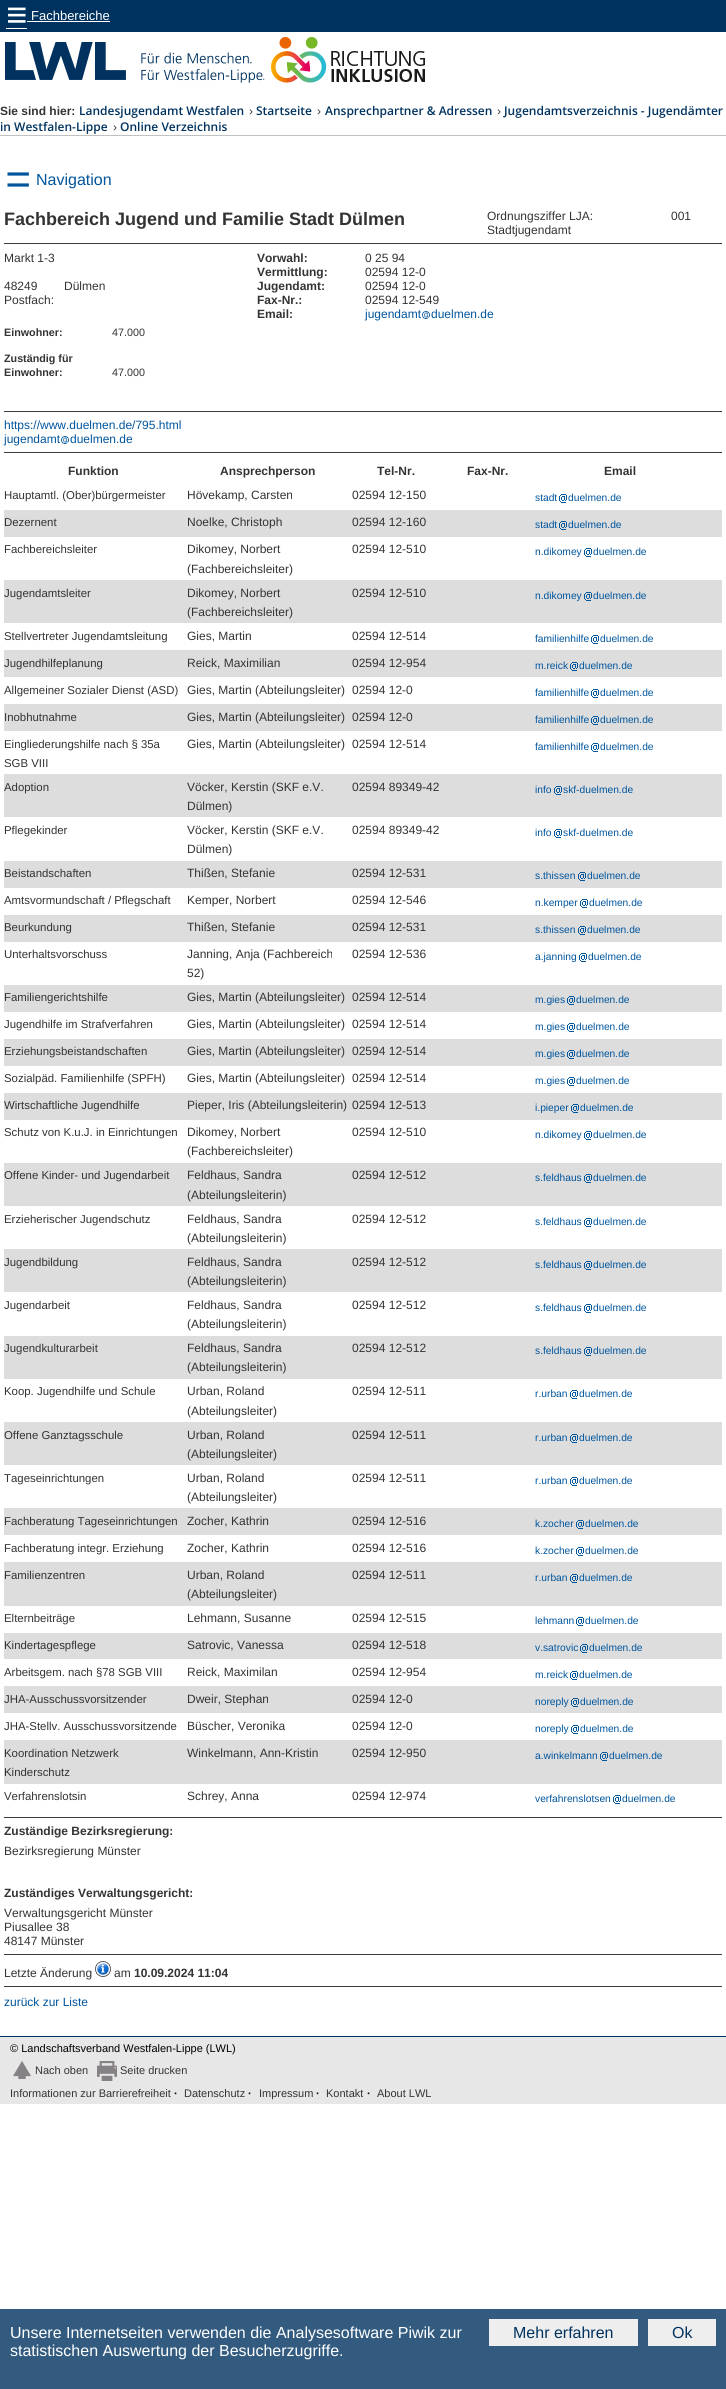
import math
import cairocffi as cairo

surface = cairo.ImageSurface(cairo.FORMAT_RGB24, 726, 2389)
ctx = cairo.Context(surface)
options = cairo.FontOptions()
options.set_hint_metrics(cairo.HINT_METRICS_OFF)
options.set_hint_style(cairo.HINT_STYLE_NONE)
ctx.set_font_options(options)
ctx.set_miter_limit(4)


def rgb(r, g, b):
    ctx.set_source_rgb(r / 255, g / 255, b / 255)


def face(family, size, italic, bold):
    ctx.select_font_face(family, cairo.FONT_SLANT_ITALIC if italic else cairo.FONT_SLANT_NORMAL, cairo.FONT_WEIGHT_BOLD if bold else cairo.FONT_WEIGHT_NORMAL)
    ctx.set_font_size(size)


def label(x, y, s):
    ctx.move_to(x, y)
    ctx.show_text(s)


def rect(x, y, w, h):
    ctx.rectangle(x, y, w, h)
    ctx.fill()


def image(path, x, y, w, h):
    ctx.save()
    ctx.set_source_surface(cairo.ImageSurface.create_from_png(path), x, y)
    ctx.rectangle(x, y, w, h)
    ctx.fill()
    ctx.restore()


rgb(255, 255, 255)
ctx.paint()
rgb(0, 50, 95)
rect(0, 0, 726, 32)
face('Liberation Mono', 36, 0, 0)
rgb(255, 255, 255)
label(6, 27, '≡')
rect(6, 28, 21, 1)
face('Liberation Sans', 13, 0, 0)
label(31, 20, 'Fachbereiche')
rect(27, 21, 83, 1)
image('image0.png', 5, 42, 260, 41)
image('image1.png', 271, 37, 154, 46)
rgb(193, 193, 194)
rect(0, 135, 726, 1)
face('Liberation Sans', 12, 0, 1)
rgb(51, 51, 51)
label(0, 115, 'Sie sind hier:')
face('Open Sans SemiBold', 12, 0, 0)
rgb(0, 50, 95)
label(79, 115, 'Landesjugendamt Westfalen')
face('Liberation Sans', 12, 0, 0)
rgb(51, 51, 51)
label(249, 115, '›')
face('Open Sans SemiBold', 12, 0, 0)
rgb(0, 50, 95)
label(256, 115, 'Startseite')
face('Liberation Sans', 12, 0, 0)
rgb(51, 51, 51)
label(317, 115, '›')
face('Open Sans SemiBold', 12, 0, 0)
rgb(0, 50, 95)
label(325, 115, 'Ansprechpartner & Adressen')
face('Liberation Sans', 12, 0, 0)
rgb(51, 51, 51)
label(497, 115, '›')
face('Open Sans SemiBold', 12, 0, 0)
rgb(0, 50, 95)
label(504, 115, 'Jugendamtsverzeichnis - Jugendämter')
label(0, 131, 'in Westfalen-Lippe')
face('Liberation Sans', 12, 0, 0)
rgb(51, 51, 51)
label(113, 131, '›')
face('Open Sans SemiBold', 12, 0, 0)
rgb(0, 50, 95)
label(120, 131, 'Online Verzeichnis')
face('Liberation Mono', 44, 0, 0)
rgb(0, 85, 157)
label(5, 194, '=')
face('Liberation Sans', 16, 0, 0)
label(36, 185, 'Navigation')
face('Liberation Sans', 18, 0, 1)
rgb(51, 51, 51)
label(4, 225, 'Fachbereich Jugend und Familie Stadt Dülmen')
face('Liberation Sans', 12, 0, 0)
label(487, 220, 'Ordnungsziffer LJA:')
label(671, 220, '001')
label(487, 234, 'Stadtjugendamt')
rgb(60, 60, 60)
rect(4, 243, 718, 1)
rgb(51, 51, 51)
label(4, 262, 'Markt 1-3')
label(4, 290, '48249')
label(64, 290, 'Dülmen')
label(4, 304, 'Postfach:')
face('Liberation Sans', 12, 0, 1)
label(257, 262, 'Vorwahl:')
face('Liberation Sans', 12, 0, 0)
label(365, 262, '0 25 94')
face('Liberation Sans', 12, 0, 1)
label(257, 276, 'Vermittlung:')
face('Liberation Sans', 12, 0, 0)
label(365, 276, '02594 12-0')
face('Liberation Sans', 12, 0, 1)
label(257, 290, 'Jugendamt:')
face('Liberation Sans', 12, 0, 0)
label(365, 290, '02594 12-0')
face('Liberation Sans', 12, 0, 1)
label(257, 304, 'Fax-Nr.:')
face('Liberation Sans', 12, 0, 0)
label(365, 304, '02594 12-549')
face('Liberation Sans', 12, 0, 1)
label(257, 318, 'Email:')
face('Liberation Sans', 12, 0, 0)
rgb(0, 85, 157)
label(365, 318, 'jugendamt')
image('image2.png', 422, 311, 8, 8)
label(431, 318, 'duelmen.de')
face('Liberation Sans', 10.75, 0, 1)
rgb(51, 51, 51)
label(4, 336, 'Einwohner:')
face('Liberation Sans', 10.75, 0, 0)
label(112, 336, '47.000')
face('Liberation Sans', 10.75, 0, 1)
label(4, 362, 'Zuständig für')
label(4, 376, 'Einwohner:')
face('Liberation Sans', 10.75, 0, 0)
label(112, 376, '47.000')
rgb(60, 60, 60)
rect(4, 411, 718, 1)
face('Liberation Sans', 12, 0, 0)
rgb(0, 85, 157)
label(4, 429, 'https://www.duelmen.de/795.html')
label(4, 443, 'jugendamt')
image('image2.png', 61, 436, 8, 8)
label(70, 443, 'duelmen.de')
rgb(60, 60, 60)
rect(4, 452, 718, 1)
face('Liberation Sans', 12, 0, 1)
rgb(51, 51, 51)
label(68, 475, 'Funktion')
label(220, 475, 'Ansprechperson')
label(377, 475, 'Tel-Nr.')
label(467, 475, 'Fax-Nr.')
label(604, 475, 'Email')
face('Liberation Sans', 11.4, 0, 0)
label(4, 499, 'Hauptamtl. (Ober)bürgermeister')
face('Liberation Sans', 12, 0, 0)
label(187, 499, 'Hövekamp, Carsten')
label(352, 499, '02594 12-150')
face('Liberation Sans', 10.25, 0, 0)
rgb(0, 85, 157)
label(535, 501, 'stadt')
image('image3.png', 559, 494, 8, 9)
label(568, 501, 'duelmen.de')
rgb(221, 221, 221)
rect(4, 510, 718, 27)
face('Liberation Sans', 11.4, 0, 0)
rgb(51, 51, 51)
label(4, 526, 'Dezernent')
face('Liberation Sans', 12, 0, 0)
label(187, 526, 'Noelke, Christoph')
label(352, 526, '02594 12-160')
face('Liberation Sans', 10.25, 0, 0)
rgb(0, 85, 157)
label(535, 528, 'stadt')
image('image4.png', 559, 521, 8, 9)
label(568, 528, 'duelmen.de')
face('Liberation Sans', 11.4, 0, 0)
rgb(51, 51, 51)
label(4, 553, 'Fachbereichsleiter')
face('Liberation Sans', 12, 0, 0)
label(187, 553, 'Dikomey, Norbert')
label(187, 573, '(Fachbereichsleiter)')
label(352, 553, '02594 12-510')
face('Liberation Sans', 10.25, 0, 0)
rgb(0, 85, 157)
label(535, 555, 'n.dikomey')
image('image3.png', 584, 548, 8, 9)
label(593, 555, 'duelmen.de')
rgb(221, 221, 221)
rect(4, 580, 718, 43)
face('Liberation Sans', 11.4, 0, 0)
rgb(51, 51, 51)
label(4, 597, 'Jugendamtsleiter')
face('Liberation Sans', 12, 0, 0)
label(187, 597, 'Dikomey, Norbert')
label(187, 616, '(Fachbereichsleiter)')
label(352, 597, '02594 12-510')
face('Liberation Sans', 10.25, 0, 0)
rgb(0, 85, 157)
label(535, 599, 'n.dikomey')
image('image4.png', 584, 592, 8, 9)
label(593, 599, 'duelmen.de')
face('Liberation Sans', 11.4, 0, 0)
rgb(51, 51, 51)
label(4, 640, 'Stellvertreter Jugendamtsleitung')
face('Liberation Sans', 12, 0, 0)
label(187, 640, 'Gies, Martin')
label(352, 640, '02594 12-514')
face('Liberation Sans', 10.25, 0, 0)
rgb(0, 85, 157)
label(535, 642, 'familienhilfe')
image('image3.png', 591, 635, 8, 9)
label(600, 642, 'duelmen.de')
rgb(221, 221, 221)
rect(4, 650, 718, 27)
face('Liberation Sans', 11.4, 0, 0)
rgb(51, 51, 51)
label(4, 667, 'Jugendhilfeplanung')
face('Liberation Sans', 12, 0, 0)
label(187, 667, 'Reick, Maximilian')
label(352, 667, '02594 12-954')
face('Liberation Sans', 10.25, 0, 0)
rgb(0, 85, 157)
label(535, 669, 'm.reick')
image('image4.png', 570, 662, 8, 9)
label(579, 669, 'duelmen.de')
face('Liberation Sans', 11.4, 0, 0)
rgb(51, 51, 51)
label(4, 694, 'Allgemeiner Sozialer Dienst (ASD)')
face('Liberation Sans', 12, 0, 0)
label(187, 694, 'Gies, Martin (Abteilungsleiter)')
label(352, 694, '02594 12-0')
face('Liberation Sans', 10.25, 0, 0)
rgb(0, 85, 157)
label(535, 696, 'familienhilfe')
image('image3.png', 591, 689, 8, 9)
label(600, 696, 'duelmen.de')
rgb(221, 221, 221)
rect(4, 704, 718, 27)
face('Liberation Sans', 11.4, 0, 0)
rgb(51, 51, 51)
label(4, 721, 'Inobhutnahme')
face('Liberation Sans', 12, 0, 0)
label(187, 721, 'Gies, Martin (Abteilungsleiter)')
label(352, 721, '02594 12-0')
face('Liberation Sans', 10.25, 0, 0)
rgb(0, 85, 157)
label(535, 723, 'familienhilfe')
image('image4.png', 591, 716, 8, 9)
label(600, 723, 'duelmen.de')
face('Liberation Sans', 11.4, 0, 0)
rgb(51, 51, 51)
label(4, 748, 'Eingliederungshilfe nach § 35a')
label(4, 767, 'SGB VIII')
face('Liberation Sans', 12, 0, 0)
label(187, 748, 'Gies, Martin (Abteilungsleiter)')
label(352, 748, '02594 12-514')
face('Liberation Sans', 10.25, 0, 0)
rgb(0, 85, 157)
label(535, 750, 'familienhilfe')
image('image3.png', 591, 743, 8, 9)
label(600, 750, 'duelmen.de')
rgb(221, 221, 221)
rect(4, 774, 718, 43)
face('Liberation Sans', 11.4, 0, 0)
rgb(51, 51, 51)
label(4, 791, 'Adoption')
face('Liberation Sans', 12, 0, 0)
label(187, 791, 'Vöcker, Kerstin (SKF e.V.')
label(187, 810, 'Dülmen)')
label(352, 791, '02594 89349-42')
face('Liberation Sans', 10.25, 0, 0)
rgb(0, 85, 157)
label(535, 793, 'info')
image('image4.png', 554, 786, 8, 9)
label(563, 793, 'skf-duelmen.de')
face('Liberation Sans', 11.4, 0, 0)
rgb(51, 51, 51)
label(4, 834, 'Pflegekinder')
face('Liberation Sans', 12, 0, 0)
label(187, 834, 'Vöcker, Kerstin (SKF e.V.')
label(187, 853, 'Dülmen)')
label(352, 834, '02594 89349-42')
face('Liberation Sans', 10.25, 0, 0)
rgb(0, 85, 157)
label(535, 836, 'info')
image('image3.png', 554, 829, 8, 9)
label(563, 836, 'skf-duelmen.de')
rgb(221, 221, 221)
rect(4, 861, 718, 27)
face('Liberation Sans', 11.4, 0, 0)
rgb(51, 51, 51)
label(4, 877, 'Beistandschaften')
face('Liberation Sans', 12, 0, 0)
label(187, 877, 'Thißen, Stefanie')
label(352, 877, '02594 12-531')
face('Liberation Sans', 10.25, 0, 0)
rgb(0, 85, 157)
label(535, 879, 's.thissen')
image('image4.png', 578, 872, 8, 9)
label(587, 879, 'duelmen.de')
face('Liberation Sans', 11.4, 0, 0)
rgb(51, 51, 51)
label(4, 904, 'Amtsvormundschaft / Pflegschaft')
face('Liberation Sans', 12, 0, 0)
label(187, 904, 'Kemper, Norbert')
label(352, 904, '02594 12-546')
face('Liberation Sans', 10.25, 0, 0)
rgb(0, 85, 157)
label(535, 906, 'n.kemper')
image('image3.png', 580, 899, 8, 9)
label(589, 906, 'duelmen.de')
rgb(221, 221, 221)
rect(4, 915, 718, 27)
face('Liberation Sans', 11.4, 0, 0)
rgb(51, 51, 51)
label(4, 931, 'Beurkundung')
face('Liberation Sans', 12, 0, 0)
label(187, 931, 'Thißen, Stefanie')
label(352, 931, '02594 12-531')
face('Liberation Sans', 10.25, 0, 0)
rgb(0, 85, 157)
label(535, 933, 's.thissen')
image('image4.png', 578, 926, 8, 9)
label(587, 933, 'duelmen.de')
face('Liberation Sans', 11.4, 0, 0)
rgb(51, 51, 51)
label(4, 958, 'Unterhaltsvorschuss')
face('Liberation Sans', 12, 0, 0)
label(187, 958, 'Janning, Anja (Fachbereich')
label(187, 977, '52)')
label(352, 958, '02594 12-536')
face('Liberation Sans', 10.25, 0, 0)
rgb(0, 85, 157)
label(535, 960, 'a.janning')
image('image3.png', 579, 953, 8, 9)
label(588, 960, 'duelmen.de')
rgb(221, 221, 221)
rect(4, 985, 718, 27)
face('Liberation Sans', 11.4, 0, 0)
rgb(51, 51, 51)
label(4, 1001, 'Familiengerichtshilfe')
face('Liberation Sans', 12, 0, 0)
label(187, 1001, 'Gies, Martin (Abteilungsleiter)')
label(352, 1001, '02594 12-514')
face('Liberation Sans', 10.25, 0, 0)
rgb(0, 85, 157)
label(535, 1003, 'm.gies')
image('image4.png', 567, 996, 8, 9)
label(576, 1003, 'duelmen.de')
face('Liberation Sans', 11.4, 0, 0)
rgb(51, 51, 51)
label(4, 1028, 'Jugendhilfe im Strafverfahren')
face('Liberation Sans', 12, 0, 0)
label(187, 1028, 'Gies, Martin (Abteilungsleiter)')
label(352, 1028, '02594 12-514')
face('Liberation Sans', 10.25, 0, 0)
rgb(0, 85, 157)
label(535, 1030, 'm.gies')
image('image3.png', 567, 1023, 8, 9)
label(576, 1030, 'duelmen.de')
rgb(221, 221, 221)
rect(4, 1039, 718, 27)
face('Liberation Sans', 11.4, 0, 0)
rgb(51, 51, 51)
label(4, 1055, 'Erziehungsbeistandschaften')
face('Liberation Sans', 12, 0, 0)
label(187, 1055, 'Gies, Martin (Abteilungsleiter)')
label(352, 1055, '02594 12-514')
face('Liberation Sans', 10.25, 0, 0)
rgb(0, 85, 157)
label(535, 1057, 'm.gies')
image('image4.png', 567, 1050, 8, 9)
label(576, 1057, 'duelmen.de')
face('Liberation Sans', 11.4, 0, 0)
rgb(51, 51, 51)
label(4, 1082, 'Sozialpäd. Familienhilfe (SPFH)')
face('Liberation Sans', 12, 0, 0)
label(187, 1082, 'Gies, Martin (Abteilungsleiter)')
label(352, 1082, '02594 12-514')
face('Liberation Sans', 10.25, 0, 0)
rgb(0, 85, 157)
label(535, 1084, 'm.gies')
image('image3.png', 567, 1077, 8, 9)
label(576, 1084, 'duelmen.de')
rgb(221, 221, 221)
rect(4, 1093, 718, 27)
face('Liberation Sans', 11.4, 0, 0)
rgb(51, 51, 51)
label(4, 1109, 'Wirtschaftliche Jugendhilfe')
face('Liberation Sans', 12, 0, 0)
label(187, 1109, 'Pieper, Iris (Abteilungsleiterin)')
label(352, 1109, '02594 12-513')
face('Liberation Sans', 10.25, 0, 0)
rgb(0, 85, 157)
label(535, 1111, 'i.pieper')
image('image4.png', 571, 1104, 8, 9)
label(580, 1111, 'duelmen.de')
face('Liberation Sans', 11.4, 0, 0)
rgb(51, 51, 51)
label(4, 1136, 'Schutz von K.u.J. in Einrichtungen')
face('Liberation Sans', 12, 0, 0)
label(187, 1136, 'Dikomey, Norbert')
label(187, 1155, '(Fachbereichsleiter)')
label(352, 1136, '02594 12-510')
face('Liberation Sans', 10.25, 0, 0)
rgb(0, 85, 157)
label(535, 1138, 'n.dikomey')
image('image3.png', 584, 1131, 8, 9)
label(593, 1138, 'duelmen.de')
rgb(221, 221, 221)
rect(4, 1163, 718, 43)
face('Liberation Sans', 11.4, 0, 0)
rgb(51, 51, 51)
label(4, 1179, 'Offene Kinder- und Jugendarbeit')
face('Liberation Sans', 12, 0, 0)
label(187, 1179, 'Feldhaus, Sandra')
label(187, 1199, '(Abteilungsleiterin)')
label(352, 1179, '02594 12-512')
face('Liberation Sans', 10.25, 0, 0)
rgb(0, 85, 157)
label(535, 1181, 's.feldhaus')
image('image4.png', 584, 1174, 8, 9)
label(593, 1181, 'duelmen.de')
face('Liberation Sans', 11.4, 0, 0)
rgb(51, 51, 51)
label(4, 1223, 'Erzieherischer Jugendschutz')
face('Liberation Sans', 12, 0, 0)
label(187, 1223, 'Feldhaus, Sandra')
label(187, 1242, '(Abteilungsleiterin)')
label(352, 1223, '02594 12-512')
face('Liberation Sans', 10.25, 0, 0)
rgb(0, 85, 157)
label(535, 1225, 's.feldhaus')
image('image3.png', 584, 1218, 8, 9)
label(593, 1225, 'duelmen.de')
rgb(221, 221, 221)
rect(4, 1249, 718, 43)
face('Liberation Sans', 11.4, 0, 0)
rgb(51, 51, 51)
label(4, 1266, 'Jugendbildung')
face('Liberation Sans', 12, 0, 0)
label(187, 1266, 'Feldhaus, Sandra')
label(187, 1285, '(Abteilungsleiterin)')
label(352, 1266, '02594 12-512')
face('Liberation Sans', 10.25, 0, 0)
rgb(0, 85, 157)
label(535, 1268, 's.feldhaus')
image('image4.png', 584, 1261, 8, 9)
label(593, 1268, 'duelmen.de')
face('Liberation Sans', 11.4, 0, 0)
rgb(51, 51, 51)
label(4, 1309, 'Jugendarbeit')
face('Liberation Sans', 12, 0, 0)
label(187, 1309, 'Feldhaus, Sandra')
label(187, 1328, '(Abteilungsleiterin)')
label(352, 1309, '02594 12-512')
face('Liberation Sans', 10.25, 0, 0)
rgb(0, 85, 157)
label(535, 1311, 's.feldhaus')
image('image3.png', 584, 1304, 8, 9)
label(593, 1311, 'duelmen.de')
rgb(221, 221, 221)
rect(4, 1336, 718, 43)
face('Liberation Sans', 11.4, 0, 0)
rgb(51, 51, 51)
label(4, 1352, 'Jugendkulturarbeit')
face('Liberation Sans', 12, 0, 0)
label(187, 1352, 'Feldhaus, Sandra')
label(187, 1371, '(Abteilungsleiterin)')
label(352, 1352, '02594 12-512')
face('Liberation Sans', 10.25, 0, 0)
rgb(0, 85, 157)
label(535, 1354, 's.feldhaus')
image('image4.png', 584, 1347, 8, 9)
label(593, 1354, 'duelmen.de')
face('Liberation Sans', 11.4, 0, 0)
rgb(51, 51, 51)
label(4, 1395, 'Koop. Jugendhilfe und Schule')
face('Liberation Sans', 12, 0, 0)
label(187, 1395, 'Urban, Roland')
label(187, 1415, '(Abteilungsleiter)')
label(352, 1395, '02594 12-511')
face('Liberation Sans', 10.25, 0, 0)
rgb(0, 85, 157)
label(535, 1397, 'r.urban')
image('image3.png', 570, 1390, 8, 9)
label(579, 1397, 'duelmen.de')
rgb(221, 221, 221)
rect(4, 1422, 718, 43)
face('Liberation Sans', 11.4, 0, 0)
rgb(51, 51, 51)
label(4, 1439, 'Offene Ganztagsschule')
face('Liberation Sans', 12, 0, 0)
label(187, 1439, 'Urban, Roland')
label(187, 1458, '(Abteilungsleiter)')
label(352, 1439, '02594 12-511')
face('Liberation Sans', 10.25, 0, 0)
rgb(0, 85, 157)
label(535, 1441, 'r.urban')
image('image4.png', 570, 1434, 8, 9)
label(579, 1441, 'duelmen.de')
face('Liberation Sans', 11.4, 0, 0)
rgb(51, 51, 51)
label(4, 1482, 'Tageseinrichtungen')
face('Liberation Sans', 12, 0, 0)
label(187, 1482, 'Urban, Roland')
label(187, 1501, '(Abteilungsleiter)')
label(352, 1482, '02594 12-511')
face('Liberation Sans', 10.25, 0, 0)
rgb(0, 85, 157)
label(535, 1484, 'r.urban')
image('image3.png', 570, 1477, 8, 9)
label(579, 1484, 'duelmen.de')
rgb(221, 221, 221)
rect(4, 1508, 718, 27)
face('Liberation Sans', 11.4, 0, 0)
rgb(51, 51, 51)
label(4, 1525, 'Fachberatung Tageseinrichtungen')
face('Liberation Sans', 12, 0, 0)
label(187, 1525, 'Zocher, Kathrin')
label(352, 1525, '02594 12-516')
face('Liberation Sans', 10.25, 0, 0)
rgb(0, 85, 157)
label(535, 1527, 'k.zocher')
image('image4.png', 576, 1520, 8, 9)
label(585, 1527, 'duelmen.de')
face('Liberation Sans', 11.4, 0, 0)
rgb(51, 51, 51)
label(4, 1552, 'Fachberatung integr. Erziehung')
face('Liberation Sans', 12, 0, 0)
label(187, 1552, 'Zocher, Kathrin')
label(352, 1552, '02594 12-516')
face('Liberation Sans', 10.25, 0, 0)
rgb(0, 85, 157)
label(535, 1554, 'k.zocher')
image('image3.png', 576, 1547, 8, 9)
label(585, 1554, 'duelmen.de')
rgb(221, 221, 221)
rect(4, 1562, 718, 44)
face('Liberation Sans', 11.4, 0, 0)
rgb(51, 51, 51)
label(4, 1579, 'Familienzentren')
face('Liberation Sans', 12, 0, 0)
label(187, 1579, 'Urban, Roland')
label(187, 1598, '(Abteilungsleiter)')
label(352, 1579, '02594 12-511')
face('Liberation Sans', 10.25, 0, 0)
rgb(0, 85, 157)
label(535, 1581, 'r.urban')
image('image4.png', 570, 1574, 8, 9)
label(579, 1581, 'duelmen.de')
face('Liberation Sans', 11.4, 0, 0)
rgb(51, 51, 51)
label(4, 1622, 'Elternbeiträge')
face('Liberation Sans', 12, 0, 0)
label(187, 1622, 'Lehmann, Susanne')
label(352, 1622, '02594 12-515')
face('Liberation Sans', 10.25, 0, 0)
rgb(0, 85, 157)
label(535, 1624, 'lehmann')
image('image3.png', 576, 1617, 8, 9)
label(585, 1624, 'duelmen.de')
rgb(221, 221, 221)
rect(4, 1633, 718, 26)
face('Liberation Sans', 11.4, 0, 0)
rgb(51, 51, 51)
label(4, 1649, 'Kindertagespflege')
face('Liberation Sans', 12, 0, 0)
label(187, 1649, 'Satrovic, Vanessa')
label(352, 1649, '02594 12-518')
face('Liberation Sans', 10.25, 0, 0)
rgb(0, 85, 157)
label(535, 1651, 'v.satrovic')
image('image4.png', 580, 1644, 8, 9)
label(589, 1651, 'duelmen.de')
face('Liberation Sans', 11.4, 0, 0)
rgb(51, 51, 51)
label(4, 1676, 'Arbeitsgem. nach §78 SGB VIII')
face('Liberation Sans', 12, 0, 0)
label(187, 1676, 'Reick, Maximilan')
label(352, 1676, '02594 12-954')
face('Liberation Sans', 10.25, 0, 0)
rgb(0, 85, 157)
label(535, 1678, 'm.reick')
image('image3.png', 570, 1671, 8, 9)
label(579, 1678, 'duelmen.de')
rgb(221, 221, 221)
rect(4, 1686, 718, 27)
face('Liberation Sans', 11.4, 0, 0)
rgb(51, 51, 51)
label(4, 1703, 'JHA-Ausschussvorsitzender')
face('Liberation Sans', 12, 0, 0)
label(187, 1703, 'Dweir, Stephan')
label(352, 1703, '02594 12-0')
face('Liberation Sans', 10.25, 0, 0)
rgb(0, 85, 157)
label(535, 1705, 'noreply')
image('image4.png', 571, 1698, 8, 9)
label(580, 1705, 'duelmen.de')
face('Liberation Sans', 11.4, 0, 0)
rgb(51, 51, 51)
label(4, 1730, 'JHA-Stellv. Ausschussvorsitzende')
face('Liberation Sans', 12, 0, 0)
label(187, 1730, 'Büscher, Veronika')
label(352, 1730, '02594 12-0')
face('Liberation Sans', 10.25, 0, 0)
rgb(0, 85, 157)
label(535, 1732, 'noreply')
image('image3.png', 571, 1725, 8, 9)
label(580, 1732, 'duelmen.de')
rgb(221, 221, 221)
rect(4, 1740, 718, 44)
face('Liberation Sans', 11.4, 0, 0)
rgb(51, 51, 51)
label(4, 1757, 'Koordination Netzwerk')
label(4, 1776, 'Kinderschutz')
face('Liberation Sans', 12, 0, 0)
label(187, 1757, 'Winkelmann, Ann-Kristin')
label(352, 1757, '02594 12-950')
face('Liberation Sans', 10.25, 0, 0)
rgb(0, 85, 157)
label(535, 1759, 'a.winkelmann')
image('image4.png', 600, 1752, 8, 9)
label(609, 1759, 'duelmen.de')
face('Liberation Sans', 11.4, 0, 0)
rgb(51, 51, 51)
label(4, 1800, 'Verfahrenslotsin')
face('Liberation Sans', 12, 0, 0)
label(187, 1800, 'Schrey, Anna')
label(352, 1800, '02594 12-974')
face('Liberation Sans', 10.25, 0, 0)
rgb(0, 85, 157)
label(535, 1802, 'verfahrenslotsen')
image('image3.png', 613, 1795, 8, 9)
label(622, 1802, 'duelmen.de')
rgb(60, 60, 60)
rect(4, 1817, 718, 1)
face('Liberation Sans', 12, 0, 1)
rgb(51, 51, 51)
label(4, 1835, 'Zuständige Bezirksregierung:')
face('Liberation Sans', 12, 0, 0)
label(4, 1855, 'Bezirksregierung Münster')
face('Liberation Sans', 12, 0, 1)
label(4, 1897, 'Zuständiges Verwaltungsgericht:')
face('Liberation Sans', 12, 0, 0)
label(4, 1917, 'Verwaltungsgericht Münster')
label(4, 1931, 'Piusallee 38')
label(4, 1945, '48147 Münster')
rgb(60, 60, 60)
rect(4, 1954, 718, 1)
rgb(51, 51, 51)
label(4, 1977, 'Letzte Änderung')
image('image5.png', 95, 1961, 16, 16)
label(114, 1977, 'am')
face('Liberation Sans', 12, 0, 1)
label(134, 1977, '10.09.2024 11:04')
rgb(60, 60, 60)
rect(4, 1986, 718, 1)
face('Liberation Sans', 12, 0, 0)
rgb(0, 85, 157)
label(4, 2006, 'zurück zur Liste')
rgb(0, 50, 95)
rect(0, 2036, 726, 1)
rgb(231, 231, 232)
rect(0, 2037, 726, 67)
face('Liberation Sans', 11, 0, 0)
rgb(0, 0, 0)
label(10, 2052, '© Landschaftsverband Westfalen-Lippe (LWL)')
image('image6.png', 13, 2061, 18, 18)
rgb(51, 51, 51)
label(35, 2074, 'Nach oben')
image('image7.png', 97, 2061, 20, 20)
label(120, 2074, 'Seite drucken')
label(10, 2097, 'Informationen zur Barrierefreiheit')
face('Liberation Sans', 11, 0, 1)
rgb(0, 0, 0)
label(174, 2097, '·')
face('Liberation Sans', 11, 0, 0)
rgb(51, 51, 51)
label(184, 2097, 'Datenschutz')
face('Liberation Sans', 11, 0, 1)
rgb(0, 0, 0)
label(248, 2097, '·')
face('Liberation Sans', 11, 0, 0)
rgb(51, 51, 51)
label(259, 2097, 'Impressum')
face('Liberation Sans', 11, 0, 1)
rgb(0, 0, 0)
label(316, 2097, '·')
face('Liberation Sans', 11, 0, 0)
rgb(51, 51, 51)
label(326, 2097, 'Kontakt')
face('Liberation Sans', 11, 0, 1)
rgb(0, 0, 0)
label(367, 2097, '·')
face('Liberation Sans', 11, 0, 0)
rgb(51, 51, 51)
label(377, 2097, 'About LWL')
rgb(51, 91, 127)
rect(0, 2309, 726, 80)
face('Liberation Sans', 16, 0, 0)
rgb(255, 255, 255)
label(10, 2338, 'Unsere Internetseiten verwenden die Analysesoftware Piwik zur')
rgb(238, 238, 238)
rect(489, 2319, 149, 27)
rgb(0, 50, 95)
label(513, 2338, 'Mehr erfahren')
rgb(238, 238, 238)
rect(648, 2319, 68, 27)
rgb(0, 50, 95)
label(672, 2338, 'Ok')
rgb(255, 255, 255)
label(10, 2356, 'statistischen Auswertung der Besucherzugriffe.')
surface.write_to_png('render.png')
